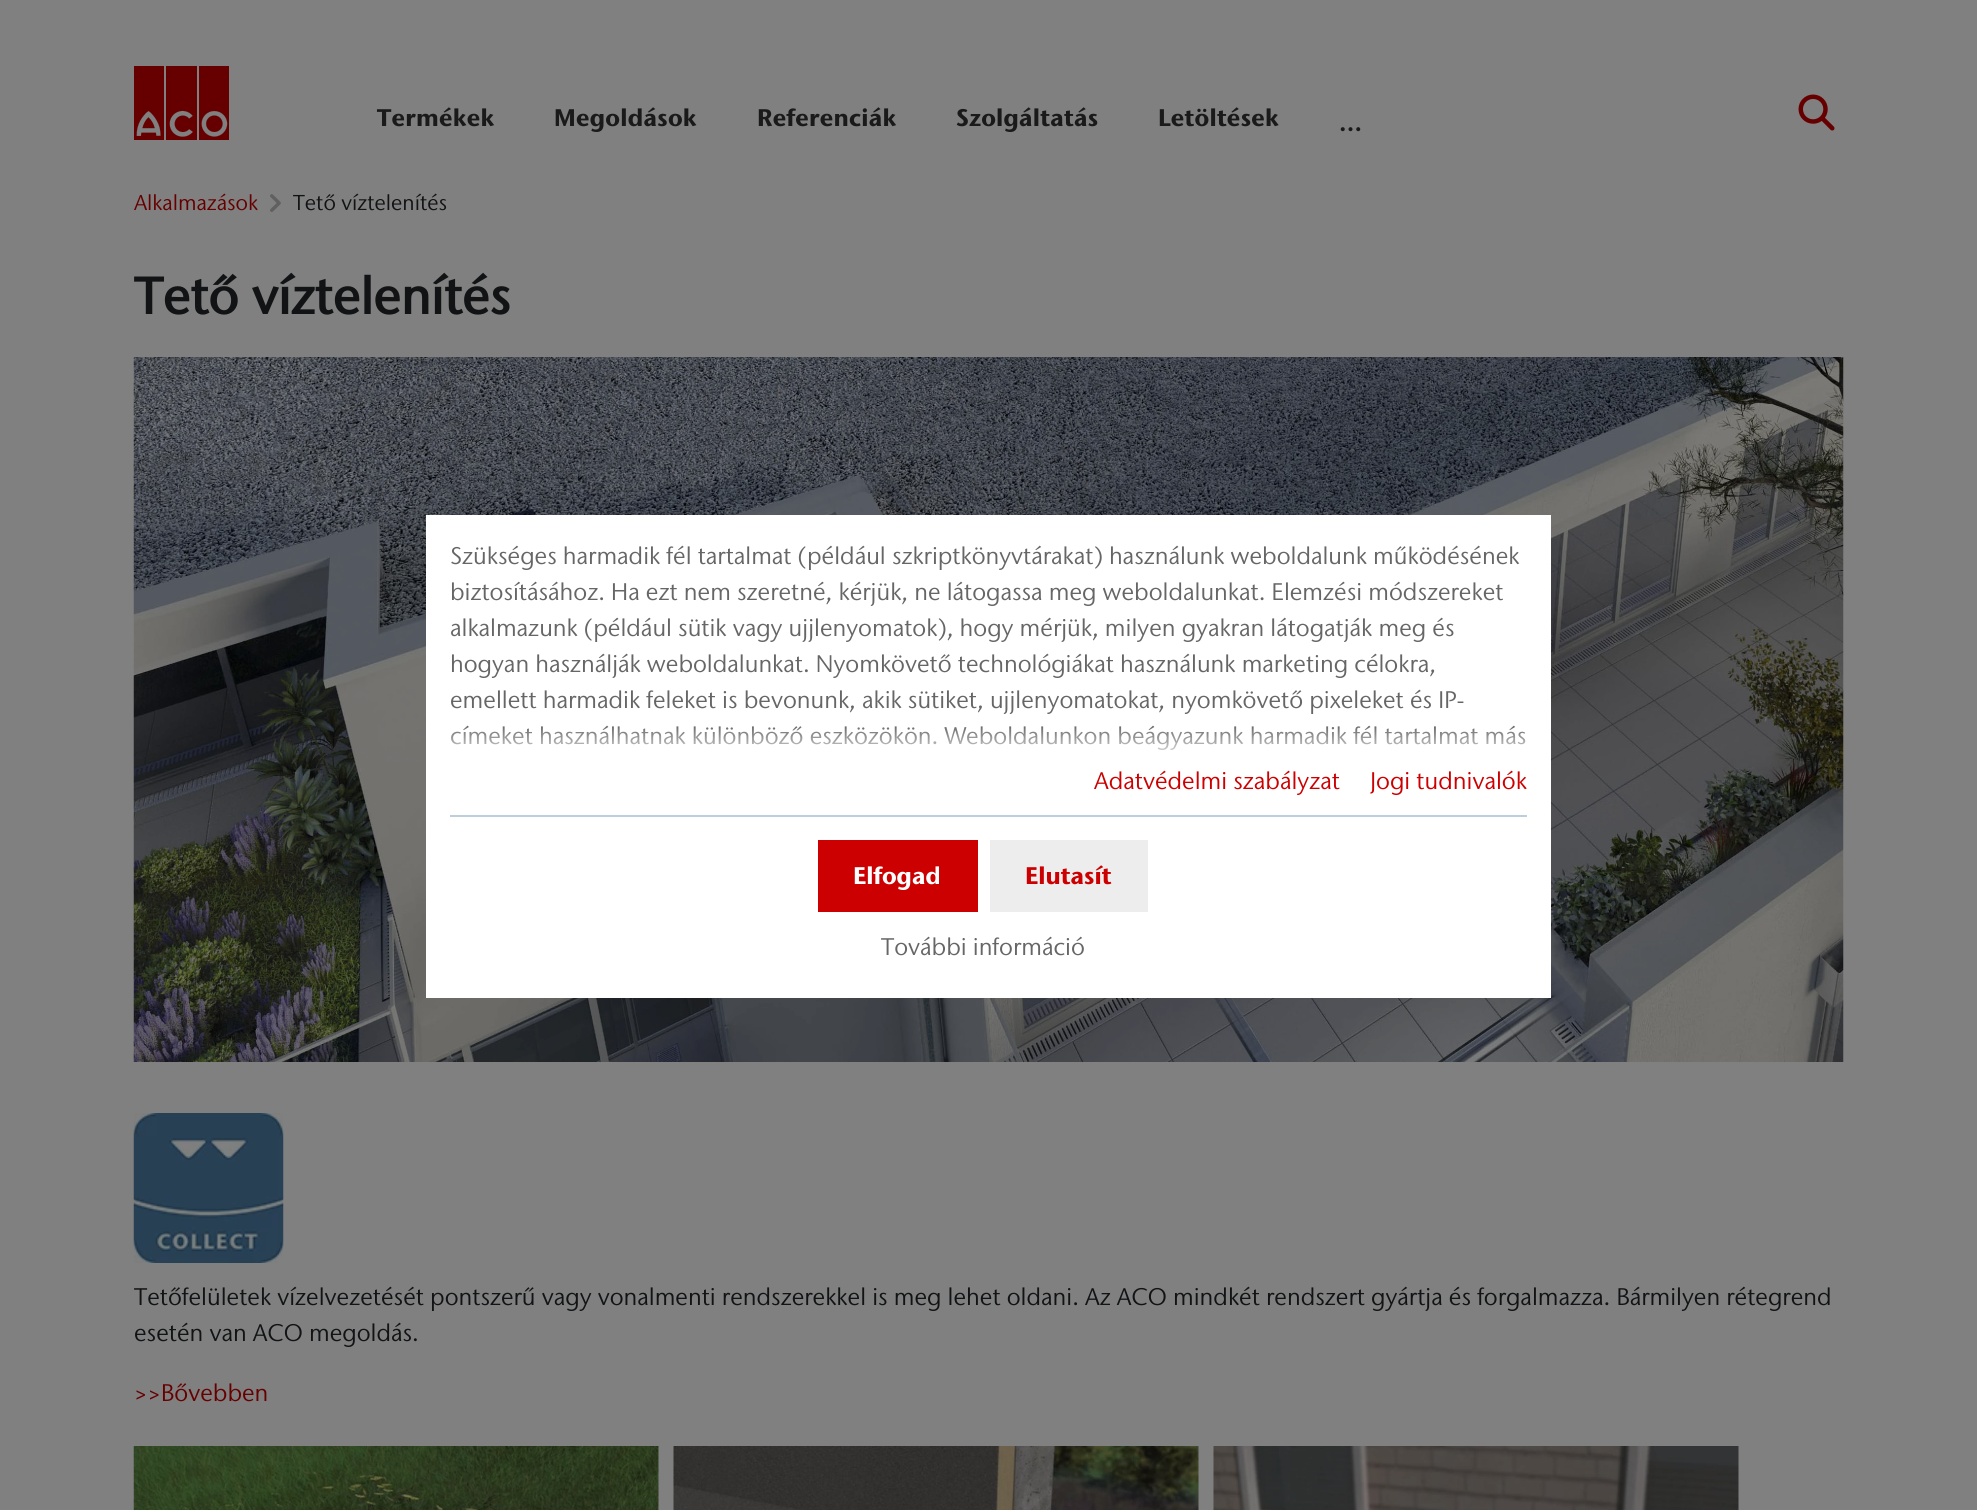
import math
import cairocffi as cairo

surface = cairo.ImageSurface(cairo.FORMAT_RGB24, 1977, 1510)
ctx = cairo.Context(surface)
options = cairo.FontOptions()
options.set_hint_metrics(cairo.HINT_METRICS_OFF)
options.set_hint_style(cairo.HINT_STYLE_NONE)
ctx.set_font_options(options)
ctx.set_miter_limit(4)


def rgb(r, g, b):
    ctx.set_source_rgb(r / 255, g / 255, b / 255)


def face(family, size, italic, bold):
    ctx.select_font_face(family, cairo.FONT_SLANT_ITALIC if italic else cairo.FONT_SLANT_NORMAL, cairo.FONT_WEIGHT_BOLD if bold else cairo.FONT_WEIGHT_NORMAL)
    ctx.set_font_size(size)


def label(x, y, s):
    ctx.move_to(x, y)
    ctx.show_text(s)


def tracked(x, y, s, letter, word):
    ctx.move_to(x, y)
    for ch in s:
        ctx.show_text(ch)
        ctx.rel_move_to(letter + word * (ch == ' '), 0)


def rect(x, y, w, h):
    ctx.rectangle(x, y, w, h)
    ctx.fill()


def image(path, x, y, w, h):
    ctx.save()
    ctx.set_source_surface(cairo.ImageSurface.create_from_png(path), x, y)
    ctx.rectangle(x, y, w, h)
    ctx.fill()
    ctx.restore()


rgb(128, 128, 128)
ctx.paint()
image('image0.png', 134, 66, 95, 74)
face('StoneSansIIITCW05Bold', 24, 0, 1)
rgb(26, 26, 26)
tracked(377, 126, 'Termékek', 0.25, 0)
tracked(554, 126, 'Megoldások', 0.25, 0)
tracked(757, 126, 'Referenciák', 0.25, 0)
tracked(956, 126, 'Szolgáltatás', 0.25, 0)
tracked(1158, 126, 'Letöltések', 0.25, 0)
tracked(1339, 131, '...', 0.25, 0)
image('image1.png', 1798, 94, 37, 37)
face('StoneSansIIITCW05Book', 21.5, 0, 0)
rgb(102, 0, 0)
label(134, 210, 'Alkalmazások')
image('image2.png', 270, 194, 11, 18)
rgb(17, 19, 21)
label(293, 210, 'Tető víztelenítés')
face('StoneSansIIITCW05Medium', 51.5, 0, 1)
label(134, 314, 'Tető víztelenítés')
image('image3.png', 133, 357, 1711, 705)
image('image4.png', 133, 1113, 151, 150)
face('StoneSansIIITCW05Book', 24, 0, 0)
label(134, 1305, 'Tetőfelületek vízelvezetését pontszerű vagy vonalmenti rendszerekkel is meg lehet oldani. Az ACO mindkét rendszert gyártja és forgalmazza. Bármilyen rétegrend')
label(134, 1341, 'esetén van ACO megoldás.')
rgb(102, 0, 0)
label(134, 1401, '>>Bővebben')
image('image5.png', 133, 1446, 526, 64)
image('image6.png', 673, 1446, 526, 64)
image('image7.png', 1213, 1446, 526, 64)
rgb(255, 255, 255)
rect(426, 515, 1125, 483)
rgb(102, 102, 102)
label(450, 564, 'Szükséges harmadik fél tartalmat (például szkriptkönyvtárakat) használunk weboldalunk működésének')
label(450, 600, 'biztosításához. Ha ezt nem szeretné, kérjük, ne látogassa meg weboldalunkat. Elemzési módszereket')
label(450, 636, 'alkalmazunk (például sütik vagy ujjlenyomatok), hogy mérjük, milyen gyakran látogatják meg és')
label(450, 672, 'hogyan használják weboldalunkat. Nyomkövető technológiákat használunk marketing célokra,')
label(450, 708, 'emellett harmadik feleket is bevonunk, akik sütiket, ujjlenyomatokat, nyomkövető pixeleket és IP-')
label(450, 744, 'címeket használhatnak különböző eszközökön. Weboldalunkon beágyazunk harmadik fél tartalmat más')
gradient = cairo.LinearGradient(989, 725, 989, 763)
gradient.add_color_stop_rgba(0, 1, 1, 1, 0)
gradient.add_color_stop_rgba(1, 1, 1, 1, 1)
ctx.set_source(gradient)
rect(451, 726, 1075, 24)
rgb(188, 207, 223)
rect(450, 815, 1077, 2)
rgb(204, 0, 0)
label(1094, 789, 'Adatvédelmi szabályzat')
label(1370, 789, 'Jogi tudnivalók')
rect(818, 840, 160, 72)
face('StoneSansIIITCW05Bold', 24, 0, 1)
rgb(255, 255, 255)
label(853, 884, 'Elfogad')
rgb(237, 237, 237)
rect(990, 840, 158, 72)
rgb(204, 0, 0)
label(1025, 884, 'Elutasít')
face('StoneSansIIITCW05Book', 24, 0, 0)
rgb(102, 102, 102)
label(881, 955, 'További információ')
surface.write_to_png('render.png')
